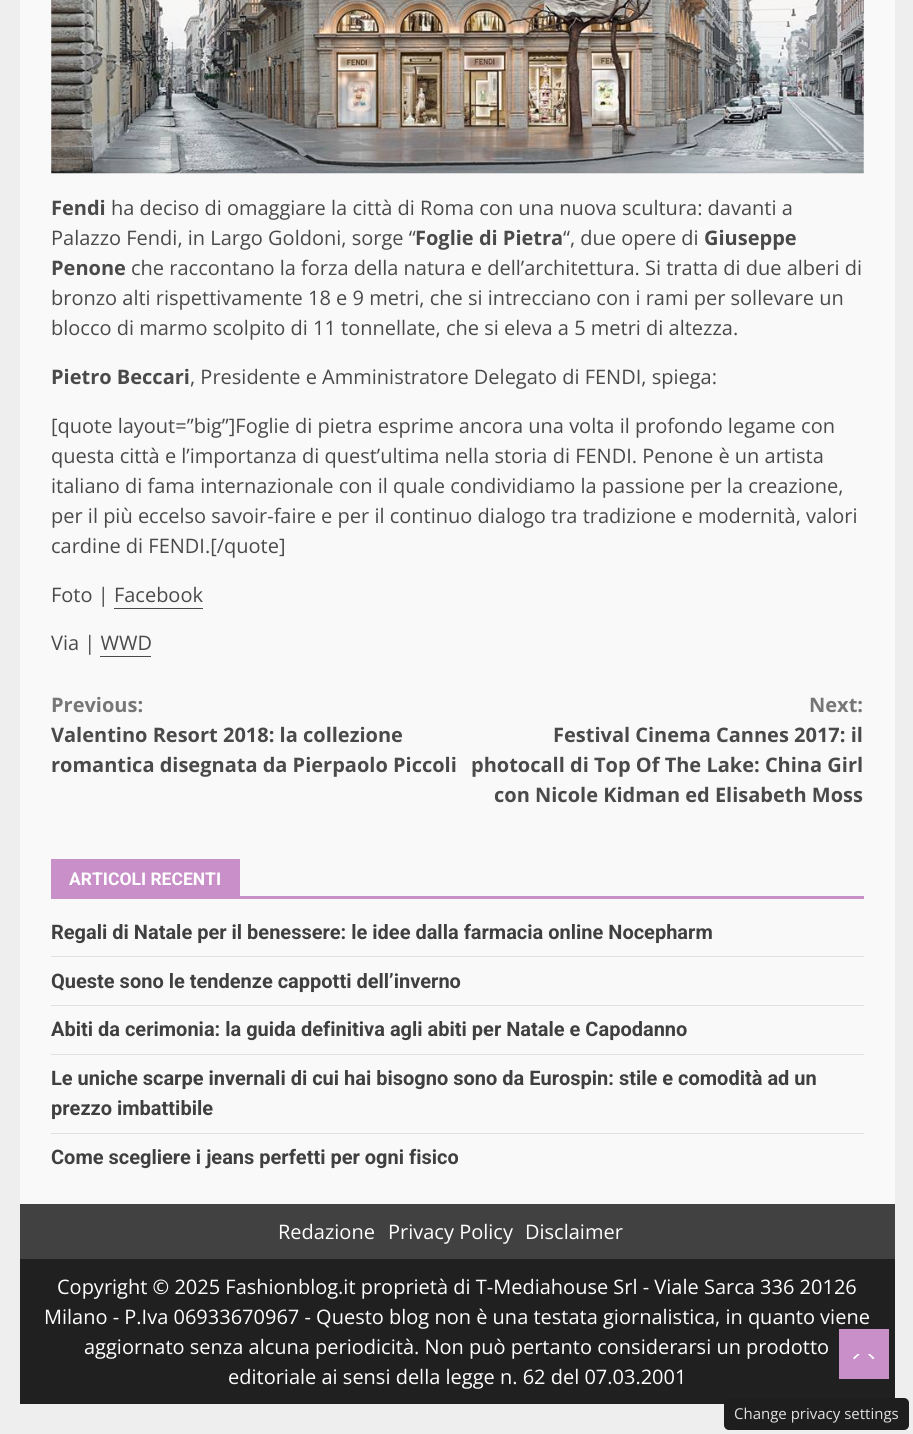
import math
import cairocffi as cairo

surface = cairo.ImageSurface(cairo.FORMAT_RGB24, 913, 1434)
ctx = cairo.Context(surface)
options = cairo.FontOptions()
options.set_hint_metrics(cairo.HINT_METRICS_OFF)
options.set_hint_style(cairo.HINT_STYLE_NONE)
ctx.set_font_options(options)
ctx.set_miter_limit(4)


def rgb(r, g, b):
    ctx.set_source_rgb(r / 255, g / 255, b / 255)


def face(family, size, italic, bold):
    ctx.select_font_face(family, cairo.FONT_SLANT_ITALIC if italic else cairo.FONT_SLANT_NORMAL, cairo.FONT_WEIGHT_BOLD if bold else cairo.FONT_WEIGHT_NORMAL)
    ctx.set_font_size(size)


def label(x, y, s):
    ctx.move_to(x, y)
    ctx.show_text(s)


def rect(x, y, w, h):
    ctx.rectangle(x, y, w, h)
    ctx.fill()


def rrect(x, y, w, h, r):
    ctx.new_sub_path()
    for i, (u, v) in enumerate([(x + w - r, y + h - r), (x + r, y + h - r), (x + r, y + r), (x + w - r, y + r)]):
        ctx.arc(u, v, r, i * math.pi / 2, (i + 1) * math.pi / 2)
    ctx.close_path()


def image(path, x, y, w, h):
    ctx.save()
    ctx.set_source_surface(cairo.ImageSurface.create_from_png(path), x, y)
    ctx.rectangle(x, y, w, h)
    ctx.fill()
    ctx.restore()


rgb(238, 238, 238)
ctx.paint()
rgb(249, 249, 249)
rect(20, 0, 875, 1204)
image('image0.png', 51, 0, 813, 174)
face('Open Sans', 20, 0, 1)
rgb(74, 74, 74)
label(51, 215, 'Fendi')
face('Open Sans', 20, 0, 0)
label(111, 215, 'ha deciso di omaggiare la città di Roma con una nuova scultura: davanti a')
label(51, 245, 'Palazzo Fendi, in Largo Goldoni, sorge “')
face('Open Sans', 20, 0, 1)
label(415, 245, 'Foglie di Pietra')
face('Open Sans', 20, 0, 0)
label(563, 245, '“, due opere di')
face('Open Sans', 20, 0, 1)
label(704, 245, 'Giuseppe')
label(51, 275, 'Penone')
face('Open Sans', 20, 0, 0)
label(131, 275, 'che raccontano la forza della natura e dell’architettura. Si tratta di due alberi di')
label(51, 305, 'bronzo alti rispettivamente 18 e 9 metri, che si intrecciano con i rami per sollevare un')
label(51, 335, 'blocco di marmo scolpito di 11 tonnellate, che si eleva a 5 metri di altezza.')
face('Open Sans', 20, 0, 1)
label(51, 384, 'Pietro Beccari')
face('Open Sans', 20, 0, 0)
label(190, 384, ', Presidente e Amministratore Delegato di FENDI, spiega:')
label(51, 433, '[quote layout=”big”]Foglie di pietra esprime ancora una volta il profondo legame con')
label(51, 463, 'questa città e l’importanza di quest’ultima nella storia di FENDI. Penone è un artista')
label(51, 493, 'italiano di fama internazionale con il quale condividiamo la passione per la creazione,')
label(51, 523, 'per il più eccelso savoir-faire e per il continuo dialogo tra tradizione e modernità, valori')
label(51, 553, 'cardine di FENDI.[/quote]')
label(51, 602, 'Foto | Facebook')
rect(114, 608, 89, 1)
label(51, 650, 'Via | WWD')
rect(100, 656, 51, 1)
face('Open Sans', 20, 0, 1)
rgb(118, 118, 118)
label(51, 712, 'Previous:')
rgb(74, 74, 74)
label(51, 742, 'Valentino Resort 2018: la collezione')
label(51, 772, 'romantica disegnata da Pierpaolo Piccoli')
rgb(118, 118, 118)
label(809, 712, 'Next:')
rgb(74, 74, 74)
label(553, 742, 'Festival Cinema Cannes 2017: il')
label(471, 772, 'photocall di Top Of The Lake: China Girl')
label(494, 802, 'con Nicole Kidman ed Elisabeth Moss')
rgb(201, 143, 201)
rect(51, 896, 813, 3)
rect(51, 859, 189, 37)
face('Roboto', 17.5, 0, 1)
rgb(255, 255, 255)
label(69, 885, 'ARTICOLI RECENTI')
rgb(224, 224, 224)
rect(51, 956, 813, 1)
face('Roboto', 20, 0, 1)
rgb(64, 64, 64)
label(51, 939, 'Regali di Natale per il benessere: le idee dalla farmacia online Nocepharm')
rgb(224, 224, 224)
rect(51, 1005, 813, 1)
rgb(64, 64, 64)
label(51, 988, 'Queste sono le tendenze cappotti dell’inverno')
rgb(224, 224, 224)
rect(51, 1054, 813, 1)
rgb(64, 64, 64)
label(51, 1036, 'Abiti da cerimonia: la guida definitiva agli abiti per Natale e Capodanno')
rgb(224, 224, 224)
rect(51, 1133, 813, 1)
rgb(64, 64, 64)
label(51, 1085, 'Le uniche scarpe invernali di cui hai bisogno sono da Eurospin: stile e comodità ad un')
label(51, 1115, 'prezzo imbattibile')
label(51, 1164, 'Come scegliere i jeans perfetti per ogni fisico')
rgb(32, 32, 32)
rect(20, 1259, 875, 145)
rgb(65, 65, 65)
rect(20, 1204, 875, 55)
face('Open Sans', 20, 0, 0)
rgb(255, 255, 255)
label(278, 1239, 'Redazione')
label(388, 1239, 'Privacy Policy')
label(525, 1239, 'Disclaimer')
label(57, 1294, 'Copyright © 2025 Fashionblog.it proprietà di T-Mediahouse Srl - Viale Sarca 336 20126')
label(44, 1324, 'Milano - P.Iva 06933670967 - Questo blog non è una testata giornalistica, in quanto viene')
label(84, 1354, 'aggiornato senza alcuna periodicità. Non può pertanto considerarsi un prodotto')
label(228, 1384, 'editoriale ai sensi della legge n. 62 del 07.03.2001')
rgb(201, 143, 201)
rect(839, 1329, 50, 50)
rgb(255, 255, 255)
ctx.new_path()
ctx.move_to(857.5, 1360)
ctx.line_to(870, 1360)
ctx.curve_to(872, 1360, 873.5, 1359, 874.5, 1358)
ctx.line_to(870, 1354)
ctx.line_to(857.5, 1354)
ctx.line_to(853, 1358)
ctx.curve_to(854, 1359.5, 856, 1360, 857.5, 1360)
ctx.close_path()
ctx.fill()
rgb(201, 143, 201)
ctx.new_path()
ctx.move_to(876, 1362.5)
ctx.line_to(851, 1362.5)
ctx.line_to(864, 1350)
ctx.close_path()
ctx.fill()
rgb(30, 30, 30)
rrect(724, 1398, 185, 32, 5)
ctx.fill()
face('Open Sans', 15, 0, 0)
rgb(227, 225, 225)
label(734, 1419, 'Change privacy settings')
surface.write_to_png('render.png')
